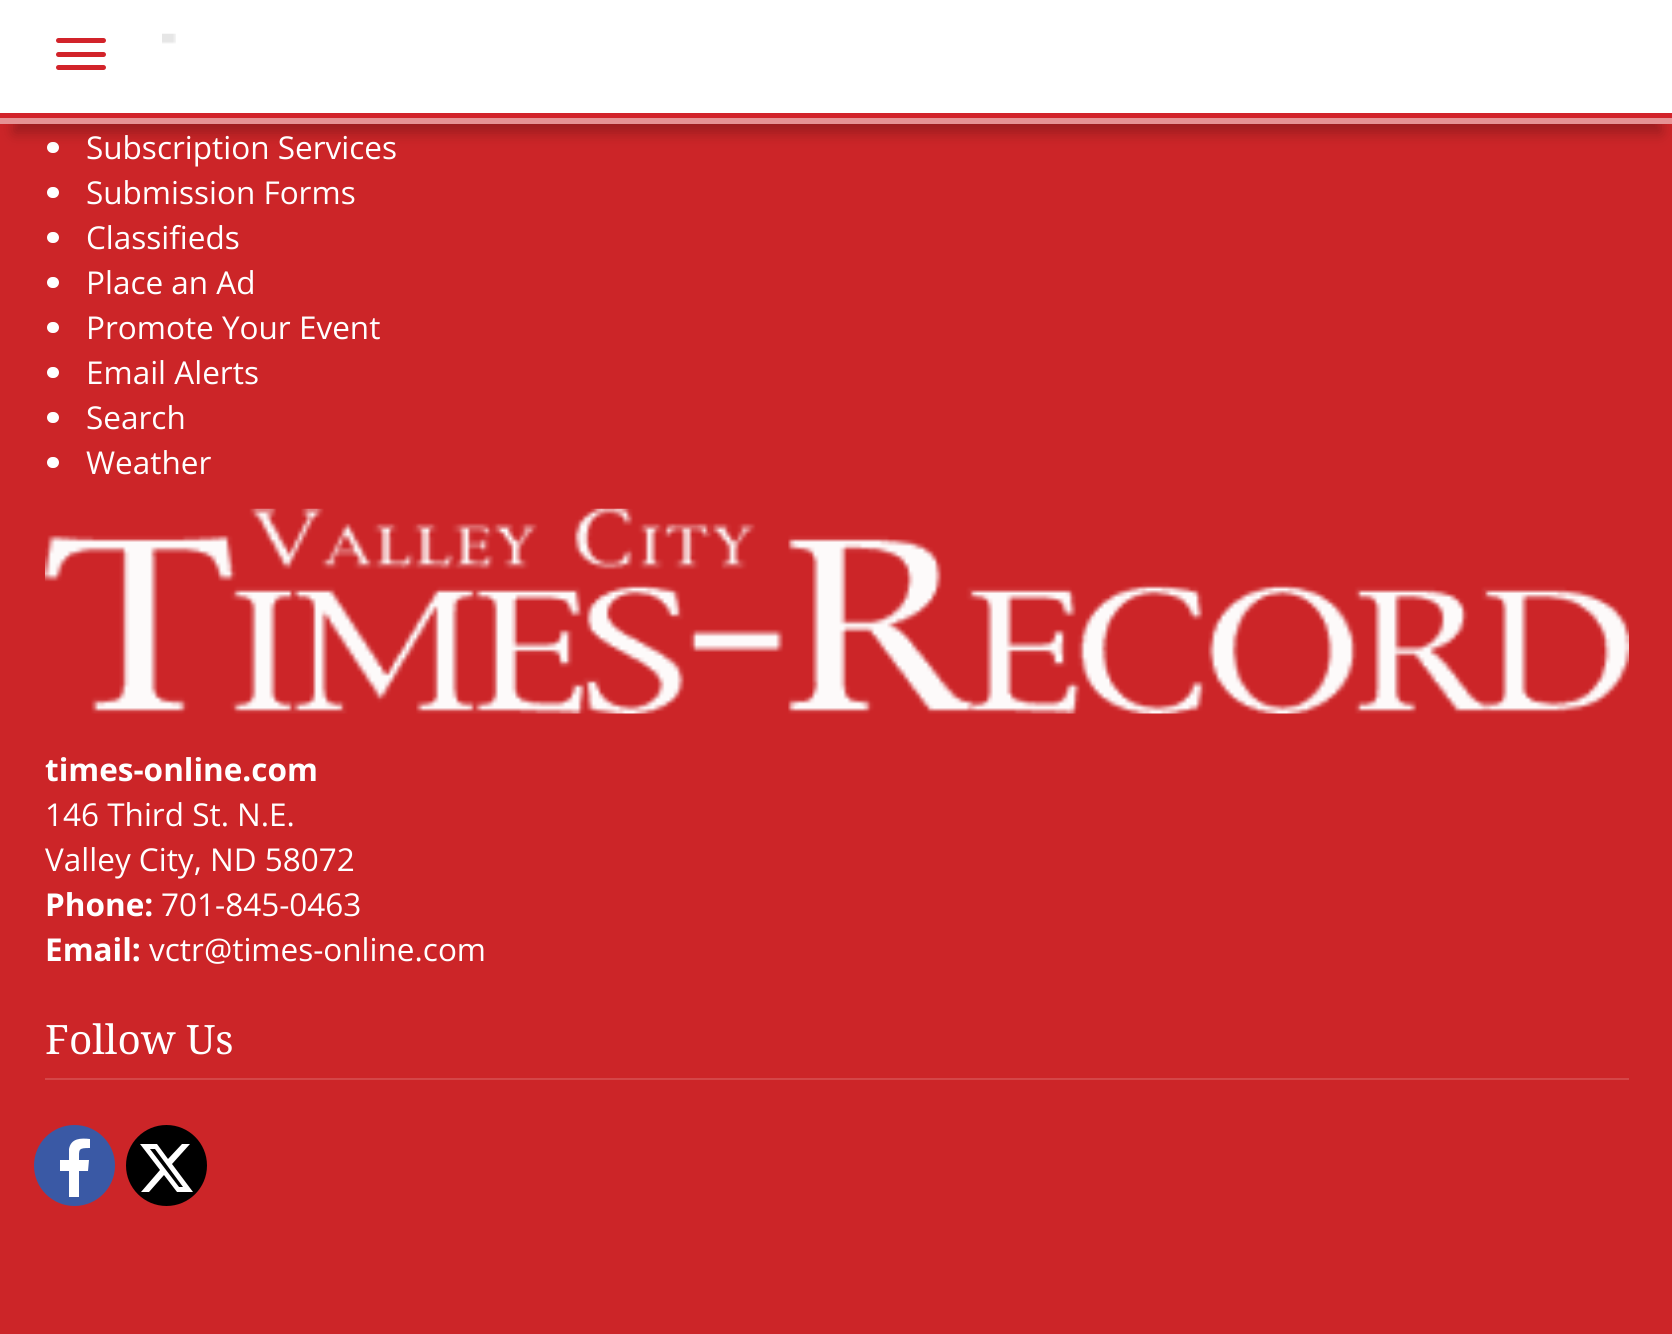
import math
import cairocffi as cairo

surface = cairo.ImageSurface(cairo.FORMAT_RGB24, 1672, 1334)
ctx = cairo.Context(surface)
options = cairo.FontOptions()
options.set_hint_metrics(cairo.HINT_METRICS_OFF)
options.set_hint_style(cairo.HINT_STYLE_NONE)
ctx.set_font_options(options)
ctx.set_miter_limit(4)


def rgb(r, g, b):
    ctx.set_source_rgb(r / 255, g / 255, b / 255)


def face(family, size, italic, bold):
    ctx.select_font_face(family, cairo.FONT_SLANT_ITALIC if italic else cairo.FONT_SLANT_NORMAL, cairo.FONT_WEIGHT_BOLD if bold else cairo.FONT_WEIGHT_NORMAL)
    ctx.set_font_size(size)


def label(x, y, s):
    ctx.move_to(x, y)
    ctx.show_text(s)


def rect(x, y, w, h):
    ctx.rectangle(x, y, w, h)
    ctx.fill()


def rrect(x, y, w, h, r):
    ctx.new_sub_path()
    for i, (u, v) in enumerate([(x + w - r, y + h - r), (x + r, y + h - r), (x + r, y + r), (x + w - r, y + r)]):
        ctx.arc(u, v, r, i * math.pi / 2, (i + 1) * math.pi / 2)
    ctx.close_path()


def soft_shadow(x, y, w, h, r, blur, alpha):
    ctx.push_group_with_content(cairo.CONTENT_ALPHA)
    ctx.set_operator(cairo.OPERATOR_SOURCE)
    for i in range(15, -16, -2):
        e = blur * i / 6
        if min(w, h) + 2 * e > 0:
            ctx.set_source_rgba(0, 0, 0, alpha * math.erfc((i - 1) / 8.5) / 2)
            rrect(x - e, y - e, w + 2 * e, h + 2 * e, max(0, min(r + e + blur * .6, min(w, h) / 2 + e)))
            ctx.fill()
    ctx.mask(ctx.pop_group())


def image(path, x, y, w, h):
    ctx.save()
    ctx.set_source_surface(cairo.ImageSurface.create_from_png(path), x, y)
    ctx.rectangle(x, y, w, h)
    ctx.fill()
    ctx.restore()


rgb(204, 37, 40)
ctx.paint()
rgb(255, 255, 255)
rrect(47, 142, 12, 11, 5.5)
ctx.fill()
rgb(0, 0, 0)
soft_shadow(14, 36, 1647, 97, 0, 7, 0.25)
rgb(230, 146, 148)
rect(0, 118, 1672, 6)
rgb(255, 255, 255)
rect(0, 0, 1672, 113)
rgb(210, 35, 42)
rect(0, 113, 1672, 5)
rrect(56, 38, 50, 5, 2.5)
ctx.fill()
rrect(56, 52, 50, 5, 2.5)
ctx.fill()
rrect(56, 65, 50, 5, 2.5)
ctx.fill()
image('image0.png', 162, 33, 14, 11)
face('Open Sans', 31.5, 0, 0)
rgb(255, 255, 255)
label(86, 159, 'Subscription Services')
rrect(47, 187, 12, 11, 5.5)
ctx.fill()
label(86, 204, 'Submission Forms')
rrect(47, 232, 12, 11, 5.5)
ctx.fill()
label(86, 249, 'Classifieds')
rrect(47, 277, 12, 11, 5.5)
ctx.fill()
label(86, 294, 'Place an Ad')
rrect(47, 322, 12, 11, 5.5)
ctx.fill()
label(86, 339, 'Promote Your Event')
rrect(47, 367, 12, 11, 5.5)
ctx.fill()
label(86, 384, 'Email Alerts')
rrect(47, 412, 12, 11, 5.5)
ctx.fill()
label(86, 429, 'Search')
rrect(47, 457, 12, 11, 5.5)
ctx.fill()
label(86, 474, 'Weather')
image('image1.png', 45, 508, 1584, 206)
face('Open Sans', 31.5, 0, 1)
label(45, 781, 'times-online.com')
face('Open Sans', 31.5, 0, 0)
label(45, 826, '146 Third St. N.E.')
label(45, 871, 'Valley City, ND 58072')
face('Open Sans', 31.5, 0, 1)
label(45, 916, 'Phone:')
face('Open Sans', 31.5, 0, 0)
label(161, 916, '701-845-0463')
face('Open Sans', 31.5, 0, 1)
label(45, 961, 'Email:')
face('Open Sans', 31.5, 0, 0)
label(149, 961, 'vctr@times-online.com')
rgb(212, 70, 72)
rect(45, 1078, 1584, 2)
face('Droid Serif', 40.5, 0, 0)
rgb(255, 255, 255)
label(45, 1054, 'Follow Us')
rgb(58, 89, 165)
ctx.new_path()
ctx.arc(74.5, 1165.5, 40.5, 0, 2 * math.pi)
ctx.fill()
rgb(255, 255, 255)
ctx.new_path()
ctx.move_to(69, 1197)
ctx.line_to(69, 1171)
ctx.line_to(60, 1171)
ctx.line_to(60, 1160)
ctx.line_to(69, 1160)
ctx.line_to(69, 1149)
ctx.curve_to(71, 1138, 81, 1138, 90, 1139)
ctx.line_to(90, 1148)
ctx.curve_to(78, 1148, 79, 1149, 79, 1160)
ctx.line_to(89, 1160)
ctx.line_to(88, 1171)
ctx.line_to(79, 1171)
ctx.line_to(79, 1197)
ctx.fill()
rgb(0, 0, 0)
ctx.arc(166.5, 1165.5, 40.5, 0, 2 * math.pi)
ctx.fill()
rgb(255, 255, 255)
ctx.new_path()
ctx.move_to(182, 1144)
ctx.line_to(190, 1144)
ctx.line_to(172, 1164)
ctx.line_to(193, 1192)
ctx.line_to(177, 1192)
ctx.line_to(164, 1175)
ctx.line_to(149, 1192)
ctx.line_to(141, 1192)
ctx.line_to(160, 1170)
ctx.line_to(140, 1144)
ctx.line_to(157, 1144)
ctx.line_to(168, 1159)
ctx.close_path()
ctx.move_to(179, 1187)
ctx.line_to(183, 1187)
ctx.line_to(155, 1149)
ctx.line_to(150, 1149)
ctx.close_path()
ctx.fill()
surface.write_to_png('render.png')
